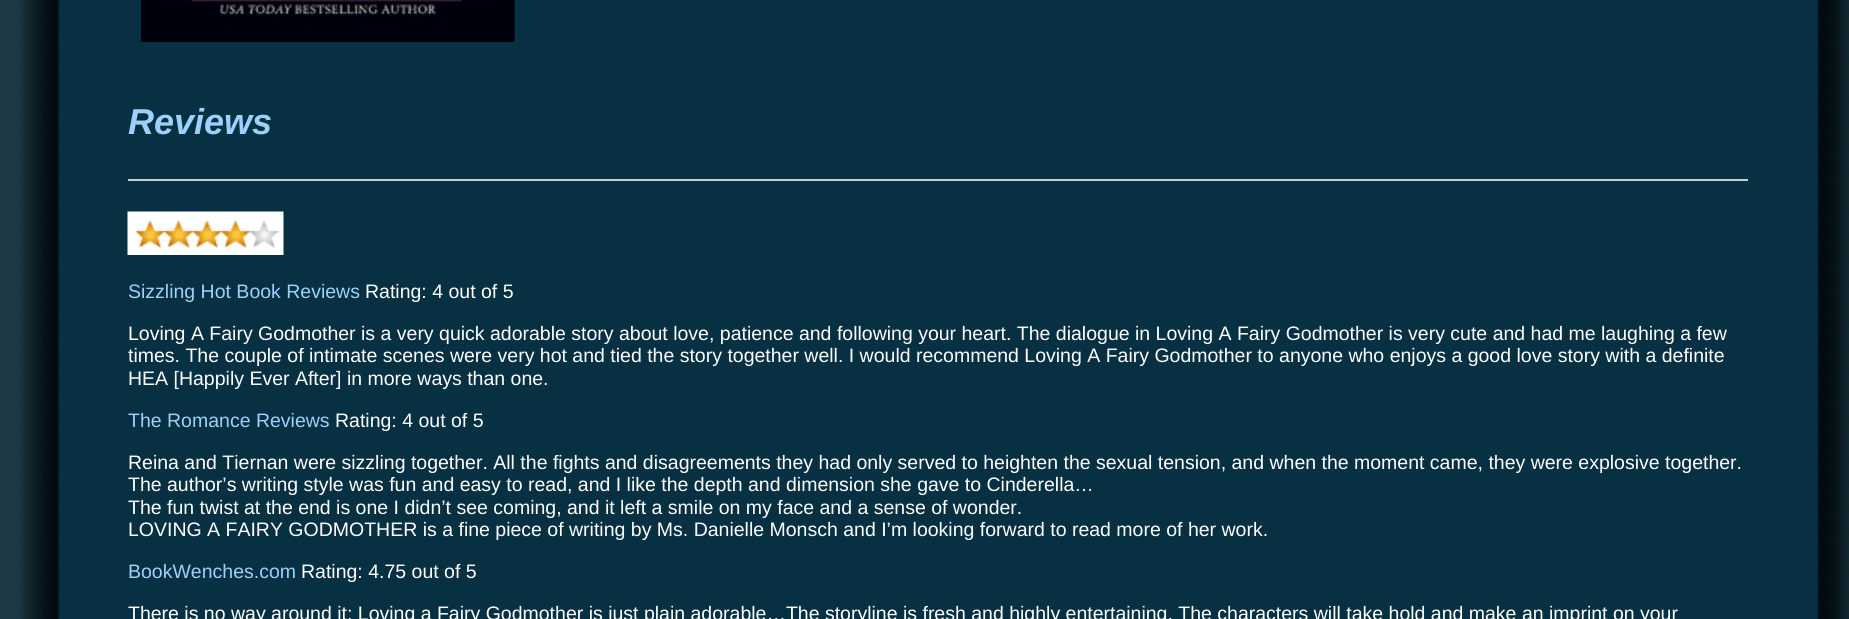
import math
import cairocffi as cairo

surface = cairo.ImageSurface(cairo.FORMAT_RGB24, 1849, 619)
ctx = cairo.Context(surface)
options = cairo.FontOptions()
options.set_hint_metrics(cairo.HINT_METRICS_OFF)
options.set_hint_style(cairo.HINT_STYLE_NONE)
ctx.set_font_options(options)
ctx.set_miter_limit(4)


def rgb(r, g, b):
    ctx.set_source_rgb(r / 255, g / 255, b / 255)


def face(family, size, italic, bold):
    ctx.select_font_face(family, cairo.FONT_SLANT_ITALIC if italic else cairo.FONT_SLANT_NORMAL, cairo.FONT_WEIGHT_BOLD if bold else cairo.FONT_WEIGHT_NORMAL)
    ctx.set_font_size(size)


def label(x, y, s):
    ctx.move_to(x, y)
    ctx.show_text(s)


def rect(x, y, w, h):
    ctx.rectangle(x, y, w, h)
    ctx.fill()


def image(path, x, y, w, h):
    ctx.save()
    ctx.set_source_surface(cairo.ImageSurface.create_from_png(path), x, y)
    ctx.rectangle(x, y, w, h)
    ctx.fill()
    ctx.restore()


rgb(30, 57, 67)
ctx.paint()
image('image0.png', 20, 0, 1829, 619)
image('image1.png', 141, 0, 374, 42)
face('Liberation Sans', 36, 1, 1)
rgb(157, 208, 251)
label(128, 134, 'Reviews')
rgb(204, 204, 204)
rect(128, 179, 1620, 2)
image('image2.png', 127, 211, 157, 44)
face('Liberation Sans', 19.5, 0, 0)
rgb(157, 208, 251)
label(128, 298, 'Sizzling Hot Book Reviews')
rgb(255, 255, 255)
label(365, 298, 'Rating: 4 out of 5')
label(128, 340, 'Loving A Fairy Godmother is a very quick adorable story about love, patience and following your heart. The dialogue in Loving A Fairy Godmother is very cute and had me laughing a few')
label(128, 362, 'times. The couple of intimate scenes were very hot and tied the story together well. I would recommend Loving A Fairy Godmother to anyone who enjoys a good love story with a definite')
label(128, 385, 'HEA [Happily Ever After] in more ways than one.')
rgb(157, 208, 251)
label(128, 427, 'The Romance Reviews')
rgb(255, 255, 255)
label(335, 427, 'Rating: 4 out of 5')
label(128, 469, 'Reina and Tiernan were sizzling together. All the fights and disagreements they had only served to heighten the sexual tension, and when the moment came, they were explosive together.')
label(128, 491, 'The author’s writing style was fun and easy to read, and I like the depth and dimension she gave to Cinderella…')
label(128, 514, 'The fun twist at the end is one I didn’t see coming, and it left a smile on my face and a sense of wonder.')
label(128, 536, 'LOVING A FAIRY GODMOTHER is a fine piece of writing by Ms. Danielle Monsch and I’m looking forward to read more of her work.')
rgb(157, 208, 251)
label(128, 578, 'BookWenches.com')
rgb(255, 255, 255)
label(301, 578, 'Rating: 4.75 out of 5')
label(128, 620, 'There is no way around it; Loving a Fairy Godmother is just plain adorable…The storyline is fresh and highly entertaining. The characters will take hold and make an imprint on your')
surface.write_to_png('render.png')
